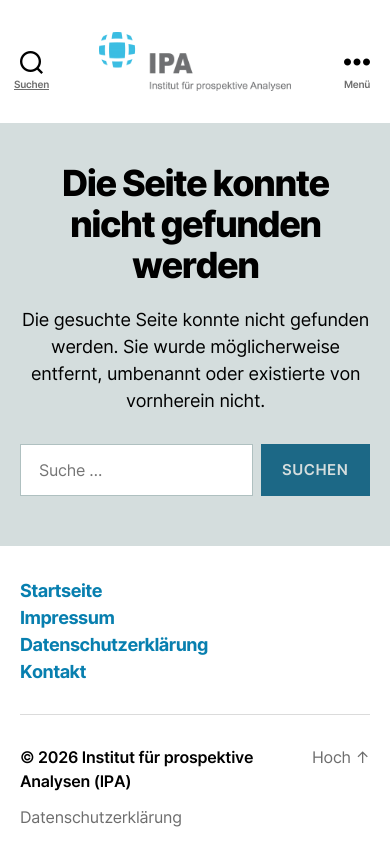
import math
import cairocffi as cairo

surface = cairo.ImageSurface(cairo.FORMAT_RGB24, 390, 857)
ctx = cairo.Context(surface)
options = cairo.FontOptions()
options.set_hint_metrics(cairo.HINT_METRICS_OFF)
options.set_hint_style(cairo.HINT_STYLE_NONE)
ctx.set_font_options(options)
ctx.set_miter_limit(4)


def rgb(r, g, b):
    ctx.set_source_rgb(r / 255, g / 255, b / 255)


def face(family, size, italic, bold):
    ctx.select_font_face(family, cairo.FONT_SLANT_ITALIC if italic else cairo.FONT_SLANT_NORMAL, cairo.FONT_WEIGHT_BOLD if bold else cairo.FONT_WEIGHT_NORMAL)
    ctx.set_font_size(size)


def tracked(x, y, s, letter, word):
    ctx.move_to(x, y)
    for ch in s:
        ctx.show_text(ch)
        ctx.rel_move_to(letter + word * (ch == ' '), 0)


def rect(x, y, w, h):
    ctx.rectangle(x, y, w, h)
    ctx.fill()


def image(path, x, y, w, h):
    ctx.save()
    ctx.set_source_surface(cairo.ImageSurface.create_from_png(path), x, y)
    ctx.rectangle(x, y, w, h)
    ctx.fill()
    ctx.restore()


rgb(212, 221, 221)
ctx.paint()
rgb(255, 255, 255)
rect(0, 0, 390, 123)
image('image0.png', 20, 51, 23, 23)
face('Inter SemiBold', 10, 0, 0)
rgb(109, 109, 109)
tracked(14, 88, 'Suchen', -0.25, 0)
rect(14, 89, 35, 1)
image('image1.png', 99, 32, 192, 59)
image('image2.png', 344, 58, 26, 8)
tracked(344, 88, 'Menü', -0.25, 0)
face('Inter ExtraBold', 36, 0, 0)
rgb(0, 0, 0)
tracked(62, 196, 'Die Seite konnte', -1.5, 0)
tracked(70, 237, 'nicht gefunden', -1.5, 0)
tracked(132, 278, 'werden', -1.5, 0)
face('Inter', 18, 0, 0)
tracked(22, 326, 'Die gesuchte Seite konnte nicht gefunden', -0.25, 0)
tracked(51, 353, 'werden. Sie wurde möglicherweise', -0.25, 0)
tracked(31, 380, 'entfernt, umbenannt oder existierte von', -0.25, 0)
tracked(126, 407, 'vornherein nicht.', -0.25, 0)
rgb(255, 255, 255)
ctx.rectangle(20.5, 444.5, 232, 51)
ctx.fill_preserve()
rgb(175, 192, 192)
ctx.set_line_width(1)
ctx.stroke()
face('Inter', 16, 0, 0)
rgb(117, 117, 117)
tracked(39, 476, 'Suche …', -0.25, 0)
rgb(28, 104, 134)
rect(261, 444, 109, 52)
face('Inter SemiBold', 15, 0, 0)
rgb(212, 221, 221)
tracked(282, 475, 'SUCHEN', 0.5, 0)
rgb(255, 255, 255)
rect(0, 546, 390, 311)
rgb(219, 219, 219)
rect(20, 714, 350, 1)
face('Inter', 18, 0, 1)
rgb(8, 127, 175)
tracked(20, 597, 'Startseite', -0.5, 0)
tracked(20, 624, 'Impressum', -0.5, 0)
tracked(20, 651, 'Datenschutzerklärung', -0.5, 0)
tracked(20, 678, 'Kontakt', -0.5, 0)
face('Inter SemiBold', 16, 0, 0)
rgb(0, 0, 0)
tracked(20, 763, '© 2026 Institut für prospektive', -0.25, 0)
tracked(20, 787, 'Analysen (IPA)', -0.25, 0)
face('Inter', 16, 0, 0)
rgb(109, 109, 109)
tracked(20, 823, 'Datenschutzerklärung', -0.25, 0)
tracked(312, 763, 'Hoch ↑', -0.25, 0)
surface.write_to_png('render.png')
